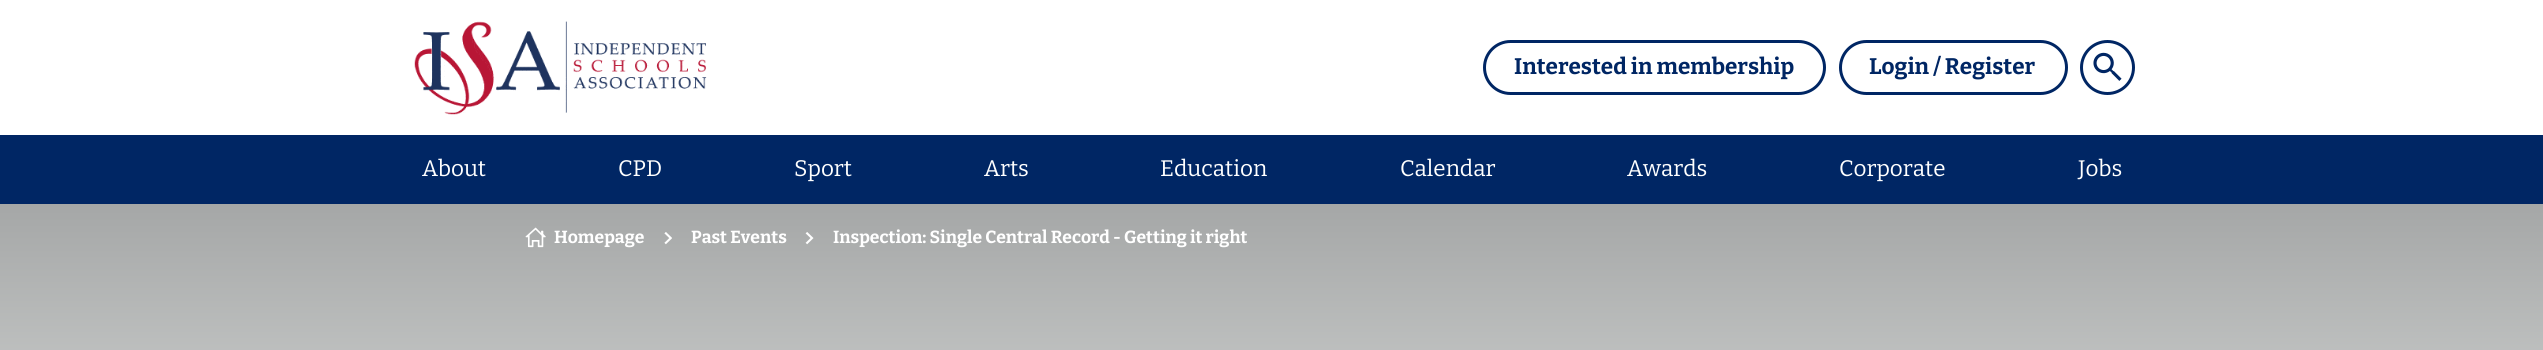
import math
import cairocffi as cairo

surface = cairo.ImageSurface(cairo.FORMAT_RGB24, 2543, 350)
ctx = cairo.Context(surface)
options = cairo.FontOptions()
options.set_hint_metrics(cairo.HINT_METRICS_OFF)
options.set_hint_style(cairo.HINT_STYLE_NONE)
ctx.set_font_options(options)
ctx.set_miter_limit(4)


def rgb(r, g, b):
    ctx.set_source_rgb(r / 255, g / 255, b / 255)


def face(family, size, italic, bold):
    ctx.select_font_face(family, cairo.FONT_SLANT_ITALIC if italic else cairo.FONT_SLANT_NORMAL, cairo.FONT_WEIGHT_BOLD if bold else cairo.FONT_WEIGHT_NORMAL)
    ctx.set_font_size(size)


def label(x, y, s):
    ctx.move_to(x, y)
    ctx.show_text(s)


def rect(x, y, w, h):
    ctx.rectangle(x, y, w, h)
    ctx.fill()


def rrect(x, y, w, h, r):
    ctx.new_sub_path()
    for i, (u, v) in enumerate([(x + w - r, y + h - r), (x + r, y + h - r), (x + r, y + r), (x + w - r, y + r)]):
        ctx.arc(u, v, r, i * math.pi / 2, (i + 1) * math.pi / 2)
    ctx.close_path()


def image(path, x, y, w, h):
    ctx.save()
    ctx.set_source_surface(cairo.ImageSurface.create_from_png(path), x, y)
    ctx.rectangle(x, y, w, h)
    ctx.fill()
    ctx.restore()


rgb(255, 255, 255)
ctx.paint()
image('image0.png', 414, 21, 293, 94)
rrect(1484.5, 41.5, 340, 52, 26)
rgb(0, 38, 100)
ctx.set_line_width(3)
ctx.stroke()
face('Bitter', 22.5, 0, 1)
label(1514, 74, 'Interested in membership')
rrect(1840.5, 41.5, 226, 52, 26)
ctx.stroke()
label(1869, 74, 'Login / Register')
ctx.new_path()
ctx.arc(2107.5, 67.5, 26, 0, 2 * math.pi)
ctx.stroke()
image('image1.png', 2093, 52, 29, 29)
rect(0, 135, 2543, 69)
face('Bitter', 22.5, 0, 0)
rgb(255, 255, 255)
label(422, 176, 'About')
label(618, 176, 'CPD')
label(794, 176, 'Sport')
label(984, 176, 'Arts')
label(1160, 176, 'Education')
label(1400, 176, 'Calendar')
label(1627, 176, 'Awards')
label(1839, 176, 'Corporate')
label(2078, 176, 'Jobs')
gradient = cairo.LinearGradient(1272, 204, 1272, 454)
gradient.add_color_stop_rgba(0, 0.647, 0.655, 0.655, 1)
gradient.add_color_stop_rgba(1, 0.804, 0.812, 0.808, 1)
ctx.set_source(gradient)
rect(0, 204, 2543, 146)
image('image2.png', 525, 227, 21, 21)
face('Bitter', 17.5, 0, 1)
rgb(255, 255, 255)
label(554, 243, 'Homepage')
image('image3.png', 664, 232, 8, 13)
label(691, 243, 'Past Events')
image('image4.png', 805, 232, 9, 13)
label(833, 243, 'Inspection: Single Central Record - Getting it right')
surface.write_to_png('render.png')
